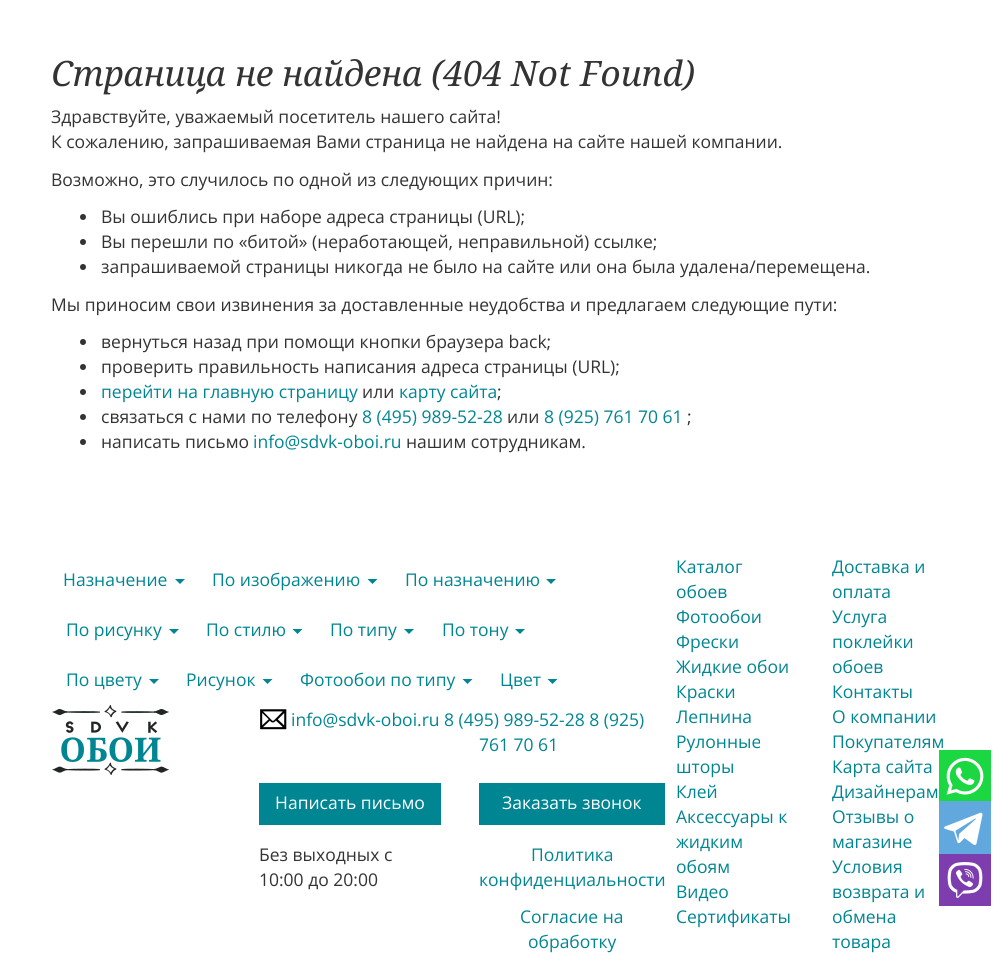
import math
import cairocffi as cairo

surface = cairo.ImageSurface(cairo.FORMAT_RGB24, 1001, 967)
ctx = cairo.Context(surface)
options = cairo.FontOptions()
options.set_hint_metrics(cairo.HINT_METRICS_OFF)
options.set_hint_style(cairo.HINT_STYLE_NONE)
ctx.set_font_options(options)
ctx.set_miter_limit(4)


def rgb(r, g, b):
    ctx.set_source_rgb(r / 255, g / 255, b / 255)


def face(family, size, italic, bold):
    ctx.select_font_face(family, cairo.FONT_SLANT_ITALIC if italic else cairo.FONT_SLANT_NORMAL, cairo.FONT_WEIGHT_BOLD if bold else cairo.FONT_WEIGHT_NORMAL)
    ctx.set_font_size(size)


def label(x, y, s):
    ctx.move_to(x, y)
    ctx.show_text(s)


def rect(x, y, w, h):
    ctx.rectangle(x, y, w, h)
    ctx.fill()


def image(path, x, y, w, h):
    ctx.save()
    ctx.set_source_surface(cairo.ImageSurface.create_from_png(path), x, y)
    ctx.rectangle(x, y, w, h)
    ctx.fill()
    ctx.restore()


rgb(255, 255, 255)
ctx.paint()
face('Noto Serif', 35, 1, 0)
rgb(51, 51, 51)
label(51, 86, 'Страница не найдена (404 Not Found)')
face('Open Sans', 17.5, 0, 0)
label(51, 123, 'Здравствуйте, уважаемый посетитель нашего сайта!')
label(51, 148, 'К сожалению, запрашиваемая Вами страница не найдена на сайте нашей компании.')
label(51, 186, 'Возможно, это случилось по одной из следующих причин:')
ctx.new_path()
ctx.arc(83, 217, 3, 0, 2 * math.pi)
ctx.fill()
label(101, 223, 'Вы ошиблись при наборе адреса страницы (URL);')
ctx.new_path()
ctx.arc(83, 242, 3, 0, 2 * math.pi)
ctx.fill()
label(101, 248, 'Вы перешли по «битой» (неработающей, неправильной) ссылке;')
ctx.new_path()
ctx.arc(83, 267, 3, 0, 2 * math.pi)
ctx.fill()
label(101, 273, 'запрашиваемой страницы никогда не было на сайте или она была удалена/перемещена.')
label(51, 311, 'Мы приносим свои извинения за доставленные неудобства и предлагаем следующие пути:')
ctx.new_path()
ctx.arc(83, 342, 3, 0, 2 * math.pi)
ctx.fill()
label(101, 348, 'вернуться назад при помощи кнопки браузера back;')
ctx.new_path()
ctx.arc(83, 367, 3, 0, 2 * math.pi)
ctx.fill()
label(101, 373, 'проверить правильность написания адреса страницы (URL);')
ctx.new_path()
ctx.arc(83, 392, 3, 0, 2 * math.pi)
ctx.fill()
rgb(0, 133, 146)
label(101, 398, 'перейти на главную страницу')
rgb(51, 51, 51)
label(362, 398, 'или')
rgb(0, 133, 146)
label(399, 398, 'карту сайта')
rgb(51, 51, 51)
label(497, 398, ';')
ctx.new_path()
ctx.arc(83, 417, 3, 0, 2 * math.pi)
ctx.fill()
label(101, 423, 'связаться с нами по телефону')
rgb(0, 133, 146)
label(362, 423, '8 (495) 989-52-28')
rgb(51, 51, 51)
label(507, 423, 'или')
rgb(0, 133, 146)
label(544, 423, '8 (925) 761 70 61')
rgb(51, 51, 51)
label(687, 423, ';')
ctx.new_path()
ctx.arc(83, 442, 3, 0, 2 * math.pi)
ctx.fill()
label(101, 448, 'написать письмо')
rgb(0, 133, 146)
label(253, 448, 'info@sdvk-oboi.ru')
rgb(51, 51, 51)
label(406, 448, 'нашим сотрудникам.')
rgb(0, 133, 146)
label(832, 748, 'Покупателям')
image('image0.png', 939, 750, 52, 51)
image('image1.png', 939, 801, 52, 53)
image('image2.png', 939, 854, 52, 52)
label(63, 586, 'Назначение')
ctx.new_path()
ctx.move_to(175, 579)
ctx.line_to(185, 579)
ctx.line_to(180, 584)
ctx.close_path()
ctx.fill()
label(212, 586, 'По изображению')
ctx.new_path()
ctx.move_to(367.5, 579)
ctx.line_to(377.5, 579)
ctx.line_to(372.5, 584)
ctx.close_path()
ctx.fill()
label(405, 586, 'По назначению')
ctx.new_path()
ctx.move_to(546, 579)
ctx.line_to(556, 579)
ctx.line_to(551, 584)
ctx.close_path()
ctx.fill()
label(66, 636, 'По рисунку')
ctx.new_path()
ctx.move_to(169, 629)
ctx.line_to(179, 629)
ctx.line_to(174, 634)
ctx.close_path()
ctx.fill()
label(206, 636, 'По стилю')
ctx.new_path()
ctx.move_to(292.5, 629)
ctx.line_to(302.5, 629)
ctx.line_to(297.5, 634)
ctx.close_path()
ctx.fill()
label(330, 636, 'По типу')
ctx.new_path()
ctx.move_to(404, 629)
ctx.line_to(414, 629)
ctx.line_to(409, 634)
ctx.close_path()
ctx.fill()
label(442, 636, 'По тону')
ctx.new_path()
ctx.move_to(515, 629)
ctx.line_to(525, 629)
ctx.line_to(520, 634)
ctx.close_path()
ctx.fill()
label(66, 686, 'По цвету')
ctx.new_path()
ctx.move_to(149, 679)
ctx.line_to(159, 679)
ctx.line_to(154, 684)
ctx.close_path()
ctx.fill()
label(186, 686, 'Рисунок')
ctx.new_path()
ctx.move_to(262.5, 679)
ctx.line_to(272.5, 679)
ctx.line_to(267.5, 684)
ctx.close_path()
ctx.fill()
label(300, 686, 'Фотообои по типу')
ctx.new_path()
ctx.move_to(462.5, 679)
ctx.line_to(472.5, 679)
ctx.line_to(467.5, 684)
ctx.close_path()
ctx.fill()
label(500, 686, 'Цвет')
ctx.new_path()
ctx.move_to(547.5, 679)
ctx.line_to(557.5, 679)
ctx.line_to(552.5, 684)
ctx.close_path()
ctx.fill()
image('image3.png', 52, 705, 117, 70)
image('image4.png', 260, 709, 27, 21)
label(291, 726, 'info@sdvk-oboi.ru')
label(444, 726, '8 (495) 989-52-28 8 (925)')
label(479, 751, '761 70 61')
rect(259, 783, 182, 42)
rgb(255, 255, 255)
label(275, 809, 'Написать письмо')
rgb(0, 133, 146)
rect(479, 783, 186, 42)
rgb(255, 255, 255)
label(502, 809, 'Заказать звонок')
rgb(51, 51, 51)
label(259, 861, 'Без выходных с')
label(259, 886, '10:00 до 20:00')
rgb(0, 133, 146)
label(531, 861, 'Политика')
label(479, 886, 'конфиденциальности')
label(520, 923, 'Согласие на')
label(528, 948, 'обработку')
label(676, 573, 'Каталог')
label(676, 598, 'обоев')
label(676, 623, 'Фотообои')
label(676, 648, 'Фрески')
label(676, 673, 'Жидкие обои')
label(676, 698, 'Краски')
label(676, 723, 'Лепнина')
label(676, 748, 'Рулонные')
label(676, 773, 'шторы')
label(676, 798, 'Клей')
label(676, 823, 'Аксессуары к')
label(676, 848, 'жидким')
label(676, 873, 'обоям')
label(676, 898, 'Видео')
label(676, 923, 'Сертификаты')
label(832, 573, 'Доставка и')
label(832, 598, 'оплата')
label(832, 623, 'Услуга')
label(832, 648, 'поклейки')
label(832, 673, 'обоев')
label(832, 698, 'Контакты')
label(832, 723, 'О компании')
label(832, 773, 'Карта сайта')
label(832, 798, 'Дизайнерам')
label(832, 823, 'Отзывы о')
label(832, 848, 'магазине')
label(832, 873, 'Условия')
label(832, 898, 'возврата и')
label(832, 923, 'обмена')
label(832, 948, 'товара')
surface.write_to_png('render.png')
